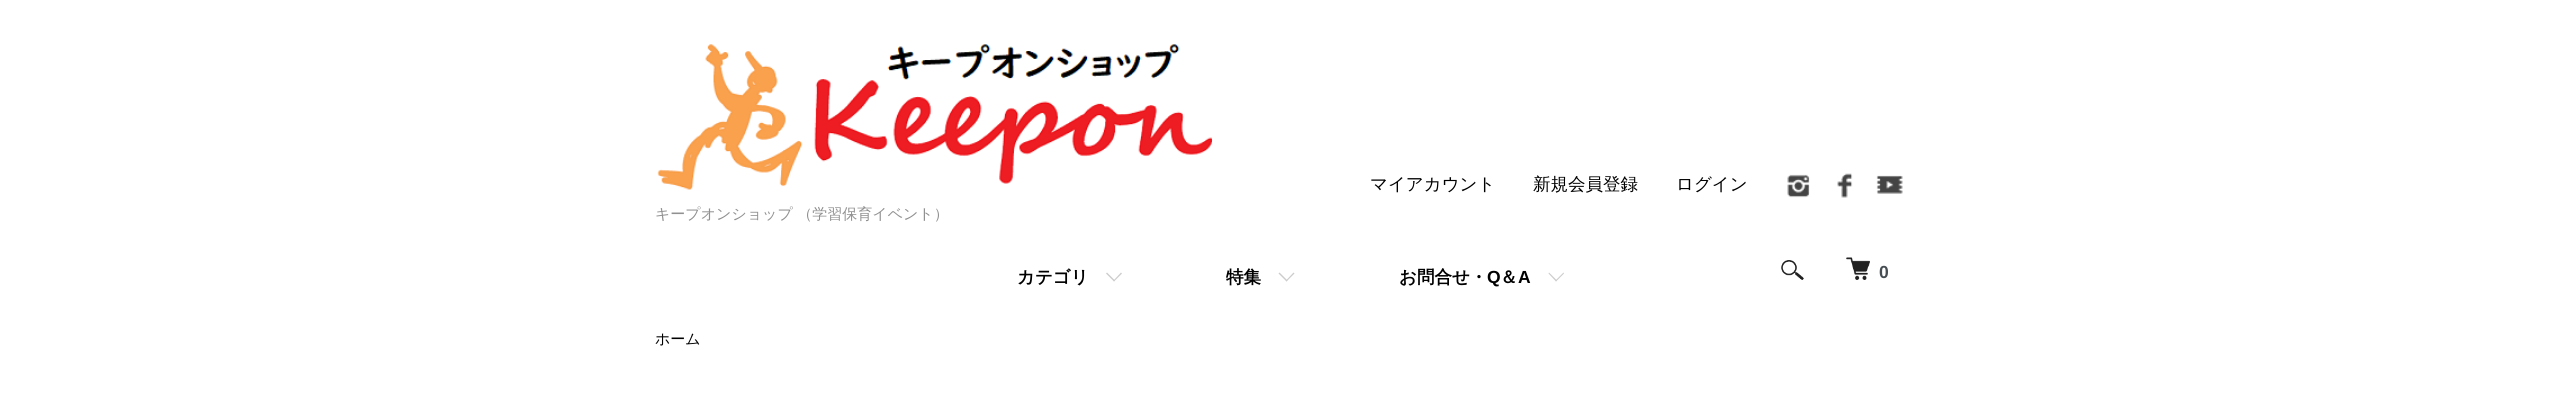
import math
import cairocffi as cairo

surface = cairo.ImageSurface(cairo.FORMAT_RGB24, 2559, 409)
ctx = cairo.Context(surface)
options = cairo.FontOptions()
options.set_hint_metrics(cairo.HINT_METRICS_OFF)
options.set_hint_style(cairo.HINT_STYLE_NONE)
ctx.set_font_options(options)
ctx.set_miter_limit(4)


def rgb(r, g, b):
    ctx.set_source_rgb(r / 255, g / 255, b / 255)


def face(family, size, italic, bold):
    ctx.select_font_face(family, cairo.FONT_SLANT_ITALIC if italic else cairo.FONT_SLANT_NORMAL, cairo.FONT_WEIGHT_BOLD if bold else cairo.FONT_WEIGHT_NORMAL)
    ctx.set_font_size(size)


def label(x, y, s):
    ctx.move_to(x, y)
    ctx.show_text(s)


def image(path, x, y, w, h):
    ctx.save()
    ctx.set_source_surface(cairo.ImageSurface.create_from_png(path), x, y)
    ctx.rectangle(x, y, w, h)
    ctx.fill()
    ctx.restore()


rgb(255, 255, 255)
ctx.paint()
face('WenQuanYi Zen Hei Medium', 17.5, 0, 0)
rgb(0, 0, 0)
label(1370, 190, 'マイアカウント')
label(1533, 190, '新規会員登録')
label(1676, 190, 'ログイン')
image('image0.png', 1787, 174, 23, 24)
image('image1.png', 1837, 173, 16, 25)
image('image2.png', 1876, 175, 27, 19)
face('WenQuanYi Zen Hei', 17.5, 0, 1)
label(1017, 283, 'カテゴリ')
rgb(204, 204, 204)
ctx.new_path()
ctx.move_to(1121, 272.5)
ctx.line_to(1122, 273.5)
ctx.line_to(1114, 281.5)
ctx.line_to(1113.5, 280.5)
ctx.close_path()
ctx.fill()
ctx.new_path()
ctx.move_to(1107, 272.5)
ctx.line_to(1115, 280.5)
ctx.line_to(1114, 281.5)
ctx.line_to(1106, 273.5)
ctx.close_path()
ctx.fill()
rgb(0, 0, 0)
label(1226, 283, '特集')
rgb(204, 204, 204)
ctx.new_path()
ctx.move_to(1293.5, 272.5)
ctx.line_to(1294.5, 273.5)
ctx.line_to(1286.5, 281.5)
ctx.line_to(1286, 280.5)
ctx.close_path()
ctx.fill()
ctx.new_path()
ctx.move_to(1279.5, 272.5)
ctx.line_to(1287.5, 280.5)
ctx.line_to(1286.5, 281.5)
ctx.line_to(1278.5, 273.5)
ctx.close_path()
ctx.fill()
rgb(0, 0, 0)
label(1399, 283, 'お問合せ・')
face('Liberation Sans', 17.5, 0, 1)
label(1487, 283, 'Q')
face('WenQuanYi Zen Hei', 17.5, 0, 1)
label(1500, 283, '＆')
face('Liberation Sans', 17.5, 0, 1)
label(1518, 283, 'A')
rgb(204, 204, 204)
ctx.new_path()
ctx.move_to(1563.5, 272.5)
ctx.line_to(1564, 273.5)
ctx.line_to(1556, 281.5)
ctx.line_to(1555.5, 280.5)
ctx.close_path()
ctx.fill()
ctx.new_path()
ctx.move_to(1549, 272.5)
ctx.line_to(1557, 280.5)
ctx.line_to(1556, 281.5)
ctx.line_to(1548.5, 273.5)
ctx.close_path()
ctx.fill()
image('image3.png', 657, 44, 556, 146)
face('WenQuanYi Zen Hei Medium', 15, 0, 0)
rgb(144, 144, 144)
label(655, 219, 'キープオンショップ （学習保育イベント）')
image('image4.png', 1781, 260, 23, 20)
image('image5.png', 1846, 257, 24, 23)
face('Liberation Sans', 17.5, 0, 1)
rgb(70, 78, 84)
label(1879, 278, '0')
face('WenQuanYi Zen Hei Medium', 15, 0, 0)
rgb(0, 0, 0)
label(655, 344, 'ホーム')
surface.write_to_png('render.png')
